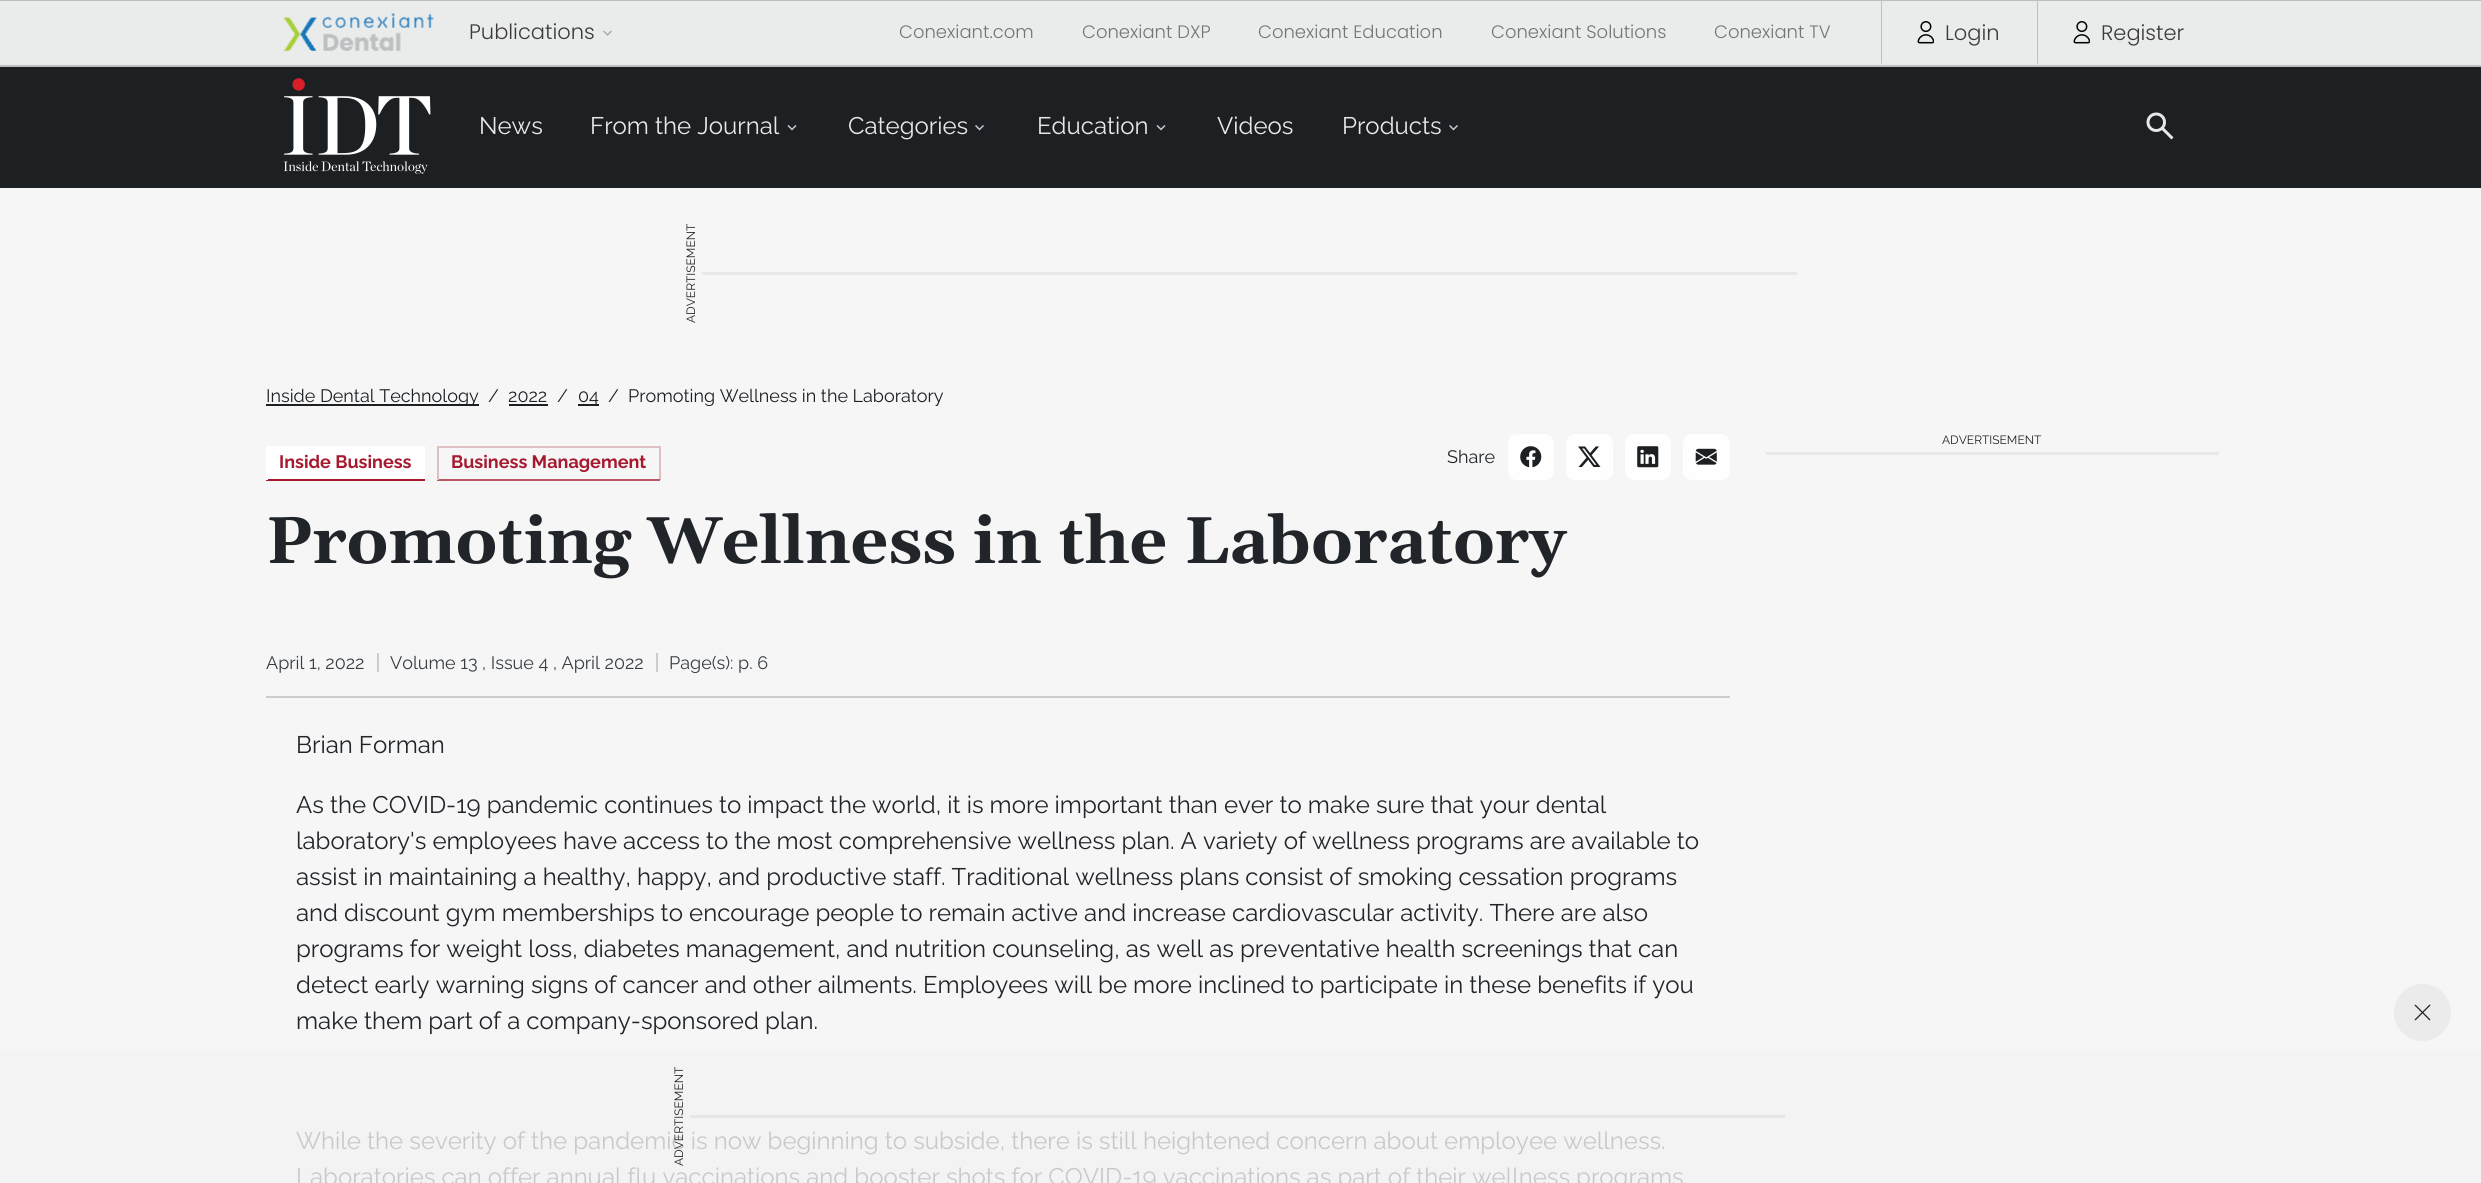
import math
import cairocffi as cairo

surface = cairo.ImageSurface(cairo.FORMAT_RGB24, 2481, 1183)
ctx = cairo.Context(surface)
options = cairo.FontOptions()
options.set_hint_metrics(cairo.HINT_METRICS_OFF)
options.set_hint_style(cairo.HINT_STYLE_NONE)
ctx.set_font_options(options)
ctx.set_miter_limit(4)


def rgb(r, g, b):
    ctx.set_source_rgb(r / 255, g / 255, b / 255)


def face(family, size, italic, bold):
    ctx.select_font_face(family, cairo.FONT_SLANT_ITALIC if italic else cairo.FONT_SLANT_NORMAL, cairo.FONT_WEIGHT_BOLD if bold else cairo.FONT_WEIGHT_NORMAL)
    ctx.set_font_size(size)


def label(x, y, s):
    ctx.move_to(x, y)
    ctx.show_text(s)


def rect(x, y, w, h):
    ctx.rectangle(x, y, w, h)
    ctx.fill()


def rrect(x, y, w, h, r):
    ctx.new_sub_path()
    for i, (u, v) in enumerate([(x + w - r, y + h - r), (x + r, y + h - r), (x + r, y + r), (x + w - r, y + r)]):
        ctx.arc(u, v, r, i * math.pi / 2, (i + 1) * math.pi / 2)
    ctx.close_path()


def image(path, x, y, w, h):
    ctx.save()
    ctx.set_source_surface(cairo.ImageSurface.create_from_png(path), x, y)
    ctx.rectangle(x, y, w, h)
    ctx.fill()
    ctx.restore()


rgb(246, 246, 247)
ctx.paint()
rgb(234, 235, 235)
rect(0, 1, 2481, 64)
rgb(188, 190, 192)
rect(0, 65, 2481, 2)
ctx.new_path()
ctx.move_to(1881, 64)
ctx.line_to(1881, 0)
ctx.line_to(1882, 2)
ctx.line_to(1882, 63)
ctx.close_path()
ctx.fill()
ctx.new_path()
ctx.move_to(2037, 64)
ctx.line_to(2037, 0)
ctx.line_to(2038, 2)
ctx.line_to(2038, 63)
ctx.close_path()
ctx.fill()
rect(0, 0, 2481, 1)
image('image0.png', 283, 13, 151, 38)
face('Poppins Light', 21, 0, 0)
rgb(59, 59, 60)
label(469, 39, 'Publications')
image('image1.png', 603, 30, 9, 6)
face('Poppins Light', 18, 0, 0)
rgb(116, 117, 119)
label(899, 38, 'Conexiant.com')
label(1082, 38, 'Conexiant DXP')
label(1258, 38, 'Conexiant Education')
label(1491, 38, 'Conexiant Solutions')
label(1714, 38, 'Conexiant TV')
image('image2.png', 1917, 21, 17, 23)
face('Poppins Light', 21, 0, 0)
rgb(59, 59, 60)
label(1945, 40, 'Login')
image('image3.png', 2073, 21, 17, 23)
label(2101, 40, 'Register')
rgb(28, 32, 35)
rect(0, 67, 2481, 121)
image('image4.png', 284, 78, 147, 96)
face('Raleway', 24, 0, 0)
rgb(230, 232, 233)
label(479, 134, 'News')
label(590, 134, 'From the Journal')
image('image5.png', 787, 125, 10, 6)
label(848, 134, 'Categories')
image('image6.png', 975, 125, 9, 6)
label(1037, 134, 'Education')
image('image5.png', 1156, 125, 10, 6)
label(1217, 134, 'Videos')
label(1342, 134, 'Products')
image('image6.png', 1449, 125, 9, 6)
image('image7.png', 2146, 112, 28, 28)
rgb(243, 243, 243)
rect(0, 1049, 2481, 134)
face('Raleway', 12, 0, 0)
rgb(33, 37, 41)
ctx.save()
ctx.translate(695, 323)
ctx.rotate(-90 * math.pi / 180)
label(0, 0, 'ADVERTISEMENT')
ctx.restore()
rgb(231, 232, 233)
rect(702, 272, 1095, 3)
rgb(28, 32, 35)
rect(266, 404, 213, 2)
face('Raleway', 18, 0, 0)
label(266, 402, 'Inside Dental Technology')
rgb(33, 37, 41)
label(488, 402, '/')
rgb(28, 32, 35)
label(508, 402, '2022')
rect(509, 404, 39, 2)
rgb(33, 37, 41)
label(557, 402, '/')
rgb(28, 32, 35)
rect(578, 404, 21, 2)
label(578, 402, '04')
rgb(33, 37, 41)
label(608, 402, '/')
rgb(28, 32, 35)
label(628, 402, 'Promoting Wellness in the Laboratory')
face('Raleway', 12, 0, 0)
rgb(33, 37, 41)
label(1942, 444, 'ADVERTISEMENT')
rgb(231, 232, 233)
rect(1766, 452, 453, 3)
rgb(204, 204, 204)
rect(266, 696, 1464, 2)
rgb(255, 255, 255)
rect(268, 446, 157, 33)
rgb(166, 26, 48)
rect(266, 479, 159, 2)
rgb(255, 255, 255)
rect(266, 446, 2, 34)
face('Raleway', 18, 0, 1)
rgb(166, 26, 48)
label(279, 468, 'Inside Business')
rgb(223, 191, 193)
rect(437, 446, 223, 2)
rect(659, 446, 2, 34)
rgb(187, 89, 98)
rect(437, 479, 223, 2)
rgb(223, 191, 193)
rect(437, 446, 2, 34)
rgb(166, 26, 48)
label(451, 468, 'Business Management')
face('Raleway', 18, 0, 0)
rgb(33, 37, 41)
label(1447, 463, 'Share')
rgb(254, 254, 254)
rrect(1508, 434, 46, 46, 9)
ctx.fill()
image('image8.png', 1520, 446, 22, 22)
rrect(1566, 434, 47, 46, 9)
ctx.fill()
image('image9.png', 1578, 446, 23, 21)
rrect(1625, 434, 46, 46, 9)
ctx.fill()
image('image10.png', 1637, 446, 22, 22)
rrect(1683, 434, 47, 46, 9)
ctx.fill()
image('image11.png', 1695, 448, 22, 17)
face('Gelasio', 66, 0, 1)
rgb(33, 37, 41)
label(266, 563, 'Promoting Wellness in the Laboratory')
face('Raleway', 18, 0, 0)
rgb(55, 62, 68)
label(266, 669, 'April 1, 2022')
rgb(204, 204, 204)
rect(377, 653, 2, 19)
rgb(55, 62, 68)
label(390, 669, 'Volume 13 , Issue 4 , April 2022')
rgb(204, 204, 204)
rect(656, 653, 2, 19)
rgb(55, 62, 68)
label(669, 669, 'Page(s): p. 6')
face('Raleway', 24, 0, 0)
rgb(33, 37, 41)
label(296, 753, 'Brian Forman')
label(296, 813, 'As the COVID-19 pandemic continues to impact the world, it is more important than ever to make sure that your dental')
label(296, 849, 'laboratory\'s employees have access to the most comprehensive wellness plan. A variety of wellness programs are available to')
label(296, 885, 'assist in maintaining a healthy, happy, and productive staff. Traditional wellness plans consist of smoking cessation programs')
label(296, 921, 'and discount gym memberships to encourage people to remain active and increase cardiovascular activity. There are also')
label(296, 957, 'programs for weight loss, diabetes management, and nutrition counseling, as well as preventative health screenings that can')
label(296, 993, 'detect early warning signs of cancer and other ailments. Employees will be more inclined to participate in these benefits if you')
label(296, 1029, 'make them part of a company-sponsored plan.')
rgb(200, 201, 202)
label(296, 1149, 'While the severity of the pandemic is now beginning to subside, there is still heightened concern about employee wellness.')
label(296, 1185, 'Laboratories can offer annual flu vaccinations and booster shots for COVID-19 vaccinations as part of their wellness programs.')
rgb(235, 235, 235)
ctx.new_path()
ctx.arc(2422.5, 1012.5, 28.5, 0, 2 * math.pi)
ctx.fill()
image('image12.png', 2414, 1004, 17, 17)
face('Raleway', 12, 0, 0)
rgb(33, 37, 41)
ctx.save()
ctx.translate(683, 1166)
ctx.rotate(-90 * math.pi / 180)
label(0, 0, 'ADVERTISEMENT')
ctx.restore()
rgb(229, 230, 231)
rect(690, 1115, 1095, 3)
surface.write_to_png('render.png')
